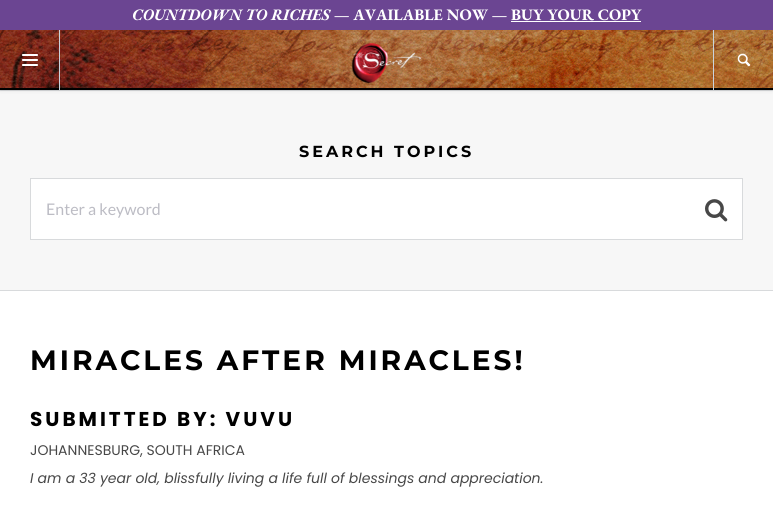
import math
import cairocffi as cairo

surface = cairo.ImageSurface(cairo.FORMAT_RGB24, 773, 512)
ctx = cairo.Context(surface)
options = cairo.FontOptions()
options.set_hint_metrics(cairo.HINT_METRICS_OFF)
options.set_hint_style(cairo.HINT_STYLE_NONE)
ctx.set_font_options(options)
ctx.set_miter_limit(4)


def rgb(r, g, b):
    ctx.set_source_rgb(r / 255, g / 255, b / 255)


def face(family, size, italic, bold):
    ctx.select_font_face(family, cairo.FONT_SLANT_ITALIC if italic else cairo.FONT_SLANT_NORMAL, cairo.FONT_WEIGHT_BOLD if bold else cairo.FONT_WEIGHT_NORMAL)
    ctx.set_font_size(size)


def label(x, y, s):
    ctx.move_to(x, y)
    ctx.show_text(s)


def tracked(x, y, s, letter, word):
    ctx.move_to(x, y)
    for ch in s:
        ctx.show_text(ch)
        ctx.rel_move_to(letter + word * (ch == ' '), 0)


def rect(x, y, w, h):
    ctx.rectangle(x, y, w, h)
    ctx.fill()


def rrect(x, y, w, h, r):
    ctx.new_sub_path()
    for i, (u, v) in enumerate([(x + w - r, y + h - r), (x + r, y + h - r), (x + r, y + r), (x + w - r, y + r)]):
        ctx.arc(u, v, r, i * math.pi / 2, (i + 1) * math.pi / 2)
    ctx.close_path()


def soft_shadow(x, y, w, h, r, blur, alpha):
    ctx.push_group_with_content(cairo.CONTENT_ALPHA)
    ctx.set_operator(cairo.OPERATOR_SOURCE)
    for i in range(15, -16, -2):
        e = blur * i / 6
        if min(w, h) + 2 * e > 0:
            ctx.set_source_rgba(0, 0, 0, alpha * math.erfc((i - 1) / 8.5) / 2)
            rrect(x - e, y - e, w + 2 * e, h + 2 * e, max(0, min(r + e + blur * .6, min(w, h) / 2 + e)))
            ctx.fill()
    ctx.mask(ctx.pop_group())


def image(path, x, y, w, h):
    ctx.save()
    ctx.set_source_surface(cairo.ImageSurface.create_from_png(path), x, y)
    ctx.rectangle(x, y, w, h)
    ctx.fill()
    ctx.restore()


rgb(216, 218, 220)
ctx.paint()
rgb(247, 247, 247)
rect(0, 91, 773, 199)
rgb(0, 0, 0)
soft_shadow(0, 31, 773, 60, 0, 1.5, 0.09)
rgb(107, 69, 146)
rect(0, 0, 773, 30)
face('EB Garamond', 16, 1, 1)
rgb(255, 255, 255)
label(132, 20, 'COUNTDOWN TO RICHES')
face('EB Garamond', 16, 0, 1)
label(334, 20, '— AVAILABLE NOW — BUY YOUR COPY')
rect(511, 21, 130, 1)
image('image0.png', 0, 30, 773, 58)
rgb(0, 0, 0)
rect(0, 88, 773, 2)
rgb(202, 212, 221)
rect(59, 30, 1, 60)
image('image1.png', 22, 54, 16, 12)
rect(713, 30, 1, 60)
image('image2.png', 737, 53, 14, 14)
image('image3.png', 351, 43, 71, 41)
rgb(255, 255, 255)
rect(0, 291, 773, 221)
face('Montserrat', 16, 0, 1)
rgb(0, 0, 0)
tracked(299, 157, 'SEARCH TOPICS', 3, 0)
rgb(255, 255, 255)
ctx.rectangle(30.5, 178.5, 712, 61)
ctx.fill_preserve()
rgb(216, 218, 220)
ctx.set_line_width(1)
ctx.stroke()
face('Lato', 16, 0, 0)
rgb(188, 188, 196)
label(46, 215, 'Enter a keyword')
image('image4.png', 705, 199, 23, 23)
face('Montserrat', 28, 0, 1)
rgb(0, 0, 0)
tracked(30, 370, 'MIRACLES AFTER MIRACLES!', 3, 0)
face('Poppins', 20, 0, 1)
tracked(30, 426, 'SUBMITTED BY: VUVU', 3, 0)
face('Poppins', 14, 0, 0)
rgb(71, 71, 71)
label(30, 455, 'JOHANNESBURG, SOUTH AFRICA')
face('Poppins', 14, 1, 0)
label(30, 483, 'I am a 33 year old, blissfully living a life full of blessings and appreciation.')
surface.write_to_png('render.png')
